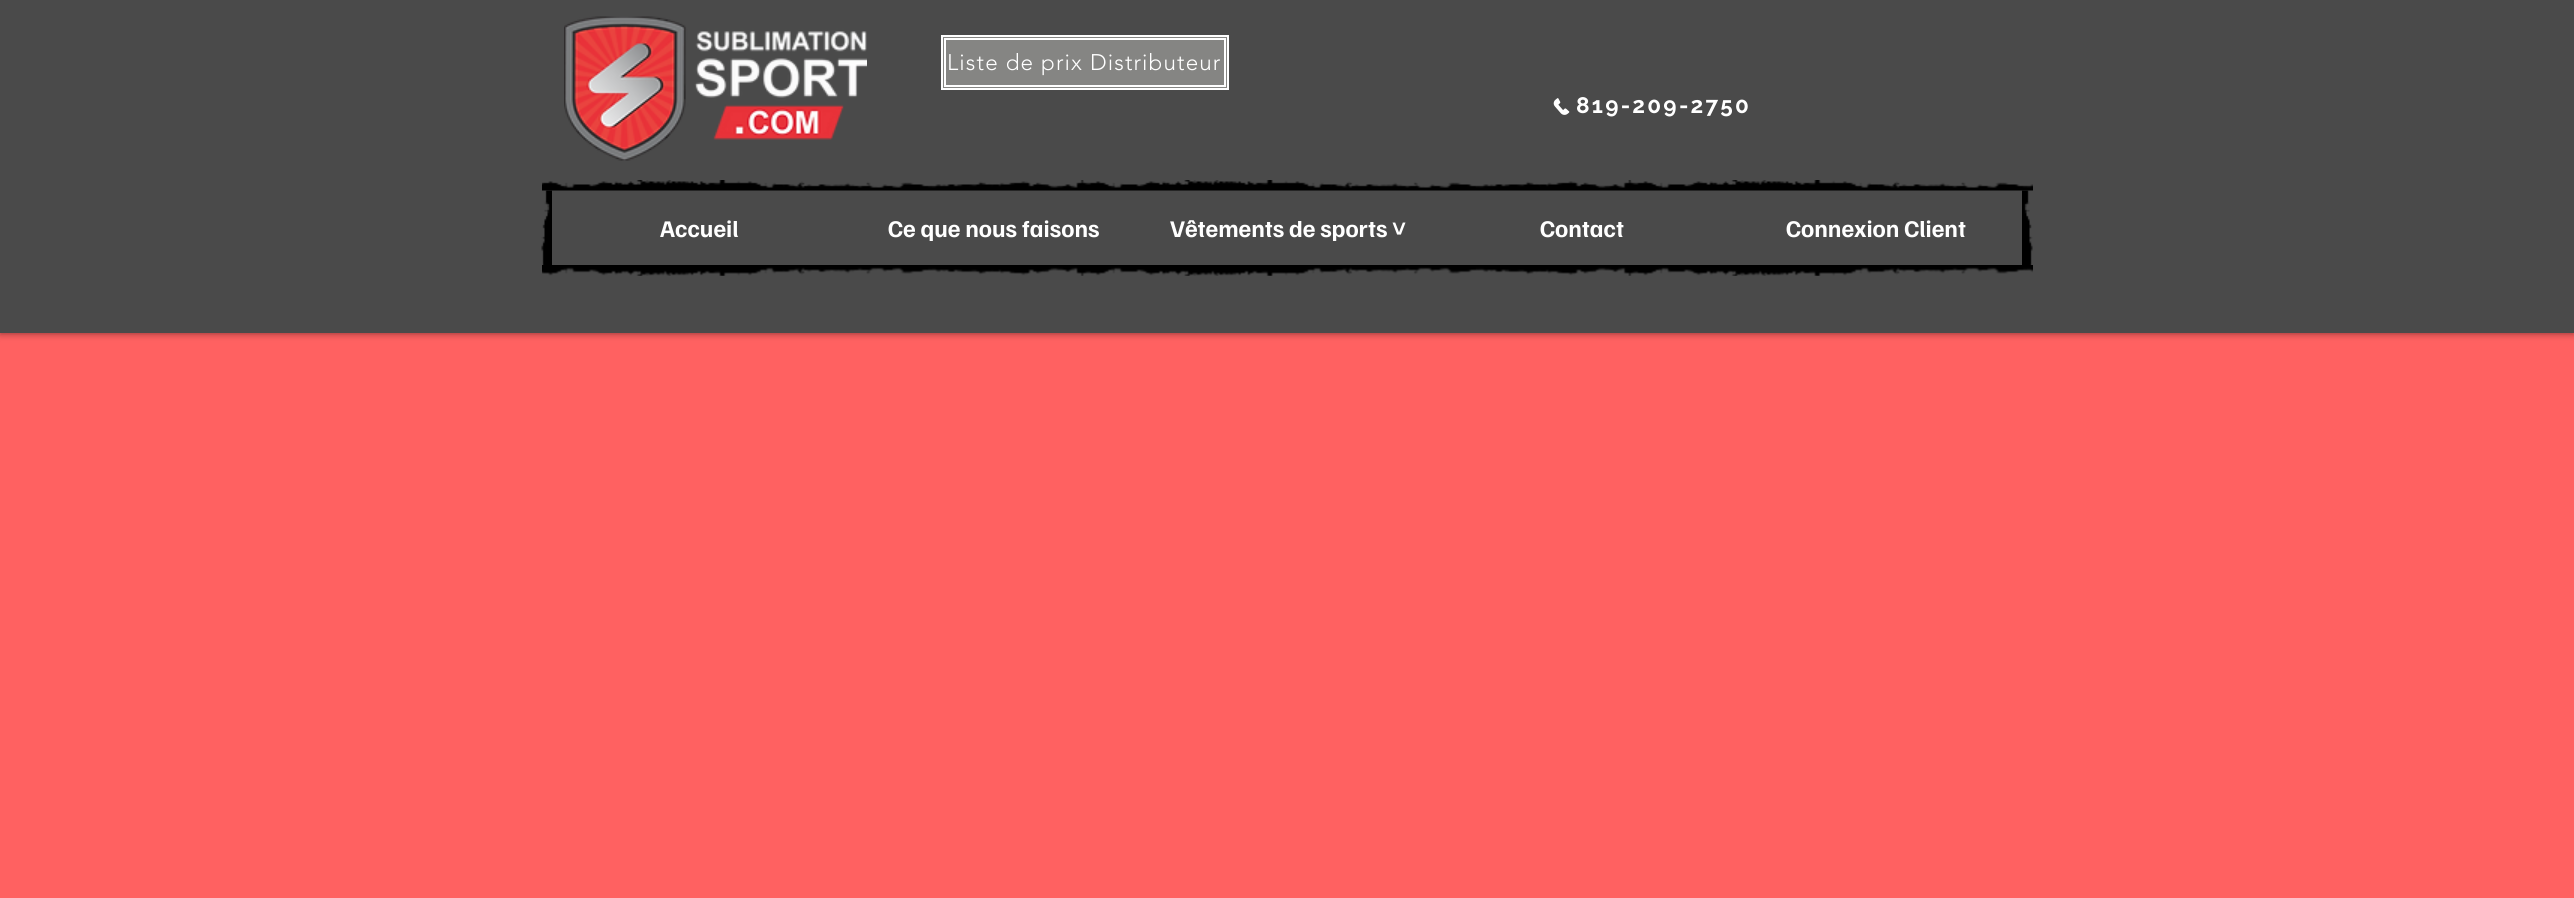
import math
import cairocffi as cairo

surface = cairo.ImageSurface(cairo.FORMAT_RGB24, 2574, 898)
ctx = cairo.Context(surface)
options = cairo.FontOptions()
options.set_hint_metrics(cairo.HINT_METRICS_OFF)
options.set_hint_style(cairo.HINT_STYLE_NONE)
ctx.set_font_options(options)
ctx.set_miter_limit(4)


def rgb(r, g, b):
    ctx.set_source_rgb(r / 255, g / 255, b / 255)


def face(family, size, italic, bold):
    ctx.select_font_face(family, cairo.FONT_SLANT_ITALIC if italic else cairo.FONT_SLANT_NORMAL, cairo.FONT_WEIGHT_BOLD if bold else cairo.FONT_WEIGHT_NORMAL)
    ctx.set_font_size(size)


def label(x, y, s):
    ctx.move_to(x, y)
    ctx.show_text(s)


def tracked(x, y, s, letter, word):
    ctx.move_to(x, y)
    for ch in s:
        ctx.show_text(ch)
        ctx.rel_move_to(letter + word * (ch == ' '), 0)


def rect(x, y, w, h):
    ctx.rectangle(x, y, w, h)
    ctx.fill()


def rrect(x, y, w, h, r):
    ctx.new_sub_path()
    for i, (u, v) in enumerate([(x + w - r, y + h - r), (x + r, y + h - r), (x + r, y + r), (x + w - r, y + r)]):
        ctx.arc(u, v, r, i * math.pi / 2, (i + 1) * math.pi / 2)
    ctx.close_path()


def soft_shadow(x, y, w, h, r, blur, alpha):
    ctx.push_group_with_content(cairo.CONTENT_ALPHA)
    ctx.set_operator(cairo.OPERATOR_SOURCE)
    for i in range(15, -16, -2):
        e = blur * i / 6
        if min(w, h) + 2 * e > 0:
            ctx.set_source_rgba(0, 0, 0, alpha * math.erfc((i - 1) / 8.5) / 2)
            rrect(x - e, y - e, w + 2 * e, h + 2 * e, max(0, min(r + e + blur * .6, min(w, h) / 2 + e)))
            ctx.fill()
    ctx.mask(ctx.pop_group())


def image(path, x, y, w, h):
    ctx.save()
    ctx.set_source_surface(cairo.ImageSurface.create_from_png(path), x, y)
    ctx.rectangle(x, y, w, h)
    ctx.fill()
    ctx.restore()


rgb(255, 97, 97)
ctx.paint()
rgb(0, 0, 0)
soft_shadow(0, 0, 2574, 333, 0, 4, 0.5)
rgb(74, 74, 74)
rect(0, 0, 2574, 333)
image('image0.png', 564, 16, 303, 145)
rgb(133, 133, 131)
ctx.rectangle(942, 36, 286, 53)
ctx.fill_preserve()
rgb(255, 255, 255)
ctx.stroke()
ctx.rectangle(945, 39, 280, 47)
ctx.stroke()
face('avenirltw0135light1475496 Light', 22.5, 0, 0)
tracked(947, 70, 'Liste de prix Distributeur', 1.1, 0)
image('image1.png', 1553, 98, 17, 17)
face('Raleway', 22.5, 0, 1)
tracked(1576, 113, '819-209-2750', 2.25, 0)
image('image2.png', 542, 180, 1491, 11)
image('image3.png', 541, 190, 11, 75)
face('Familjen Grotesk', 24, 0, 1)
label(660, 237, 'Accueil')
label(888, 237, 'Ce que nous faisons')
label(1170, 237, 'Vêtements de sports')
face('Liberation Sans', 24, 0, 1)
label(1392, 237, '˅')
face('Familjen Grotesk', 24, 0, 1)
label(1540, 237, 'Contact')
label(1786, 237, 'Connexion Client')
image('image4.png', 2022, 190, 11, 75)
image('image5.png', 542, 265, 1491, 11)
surface.write_to_png('render.png')
